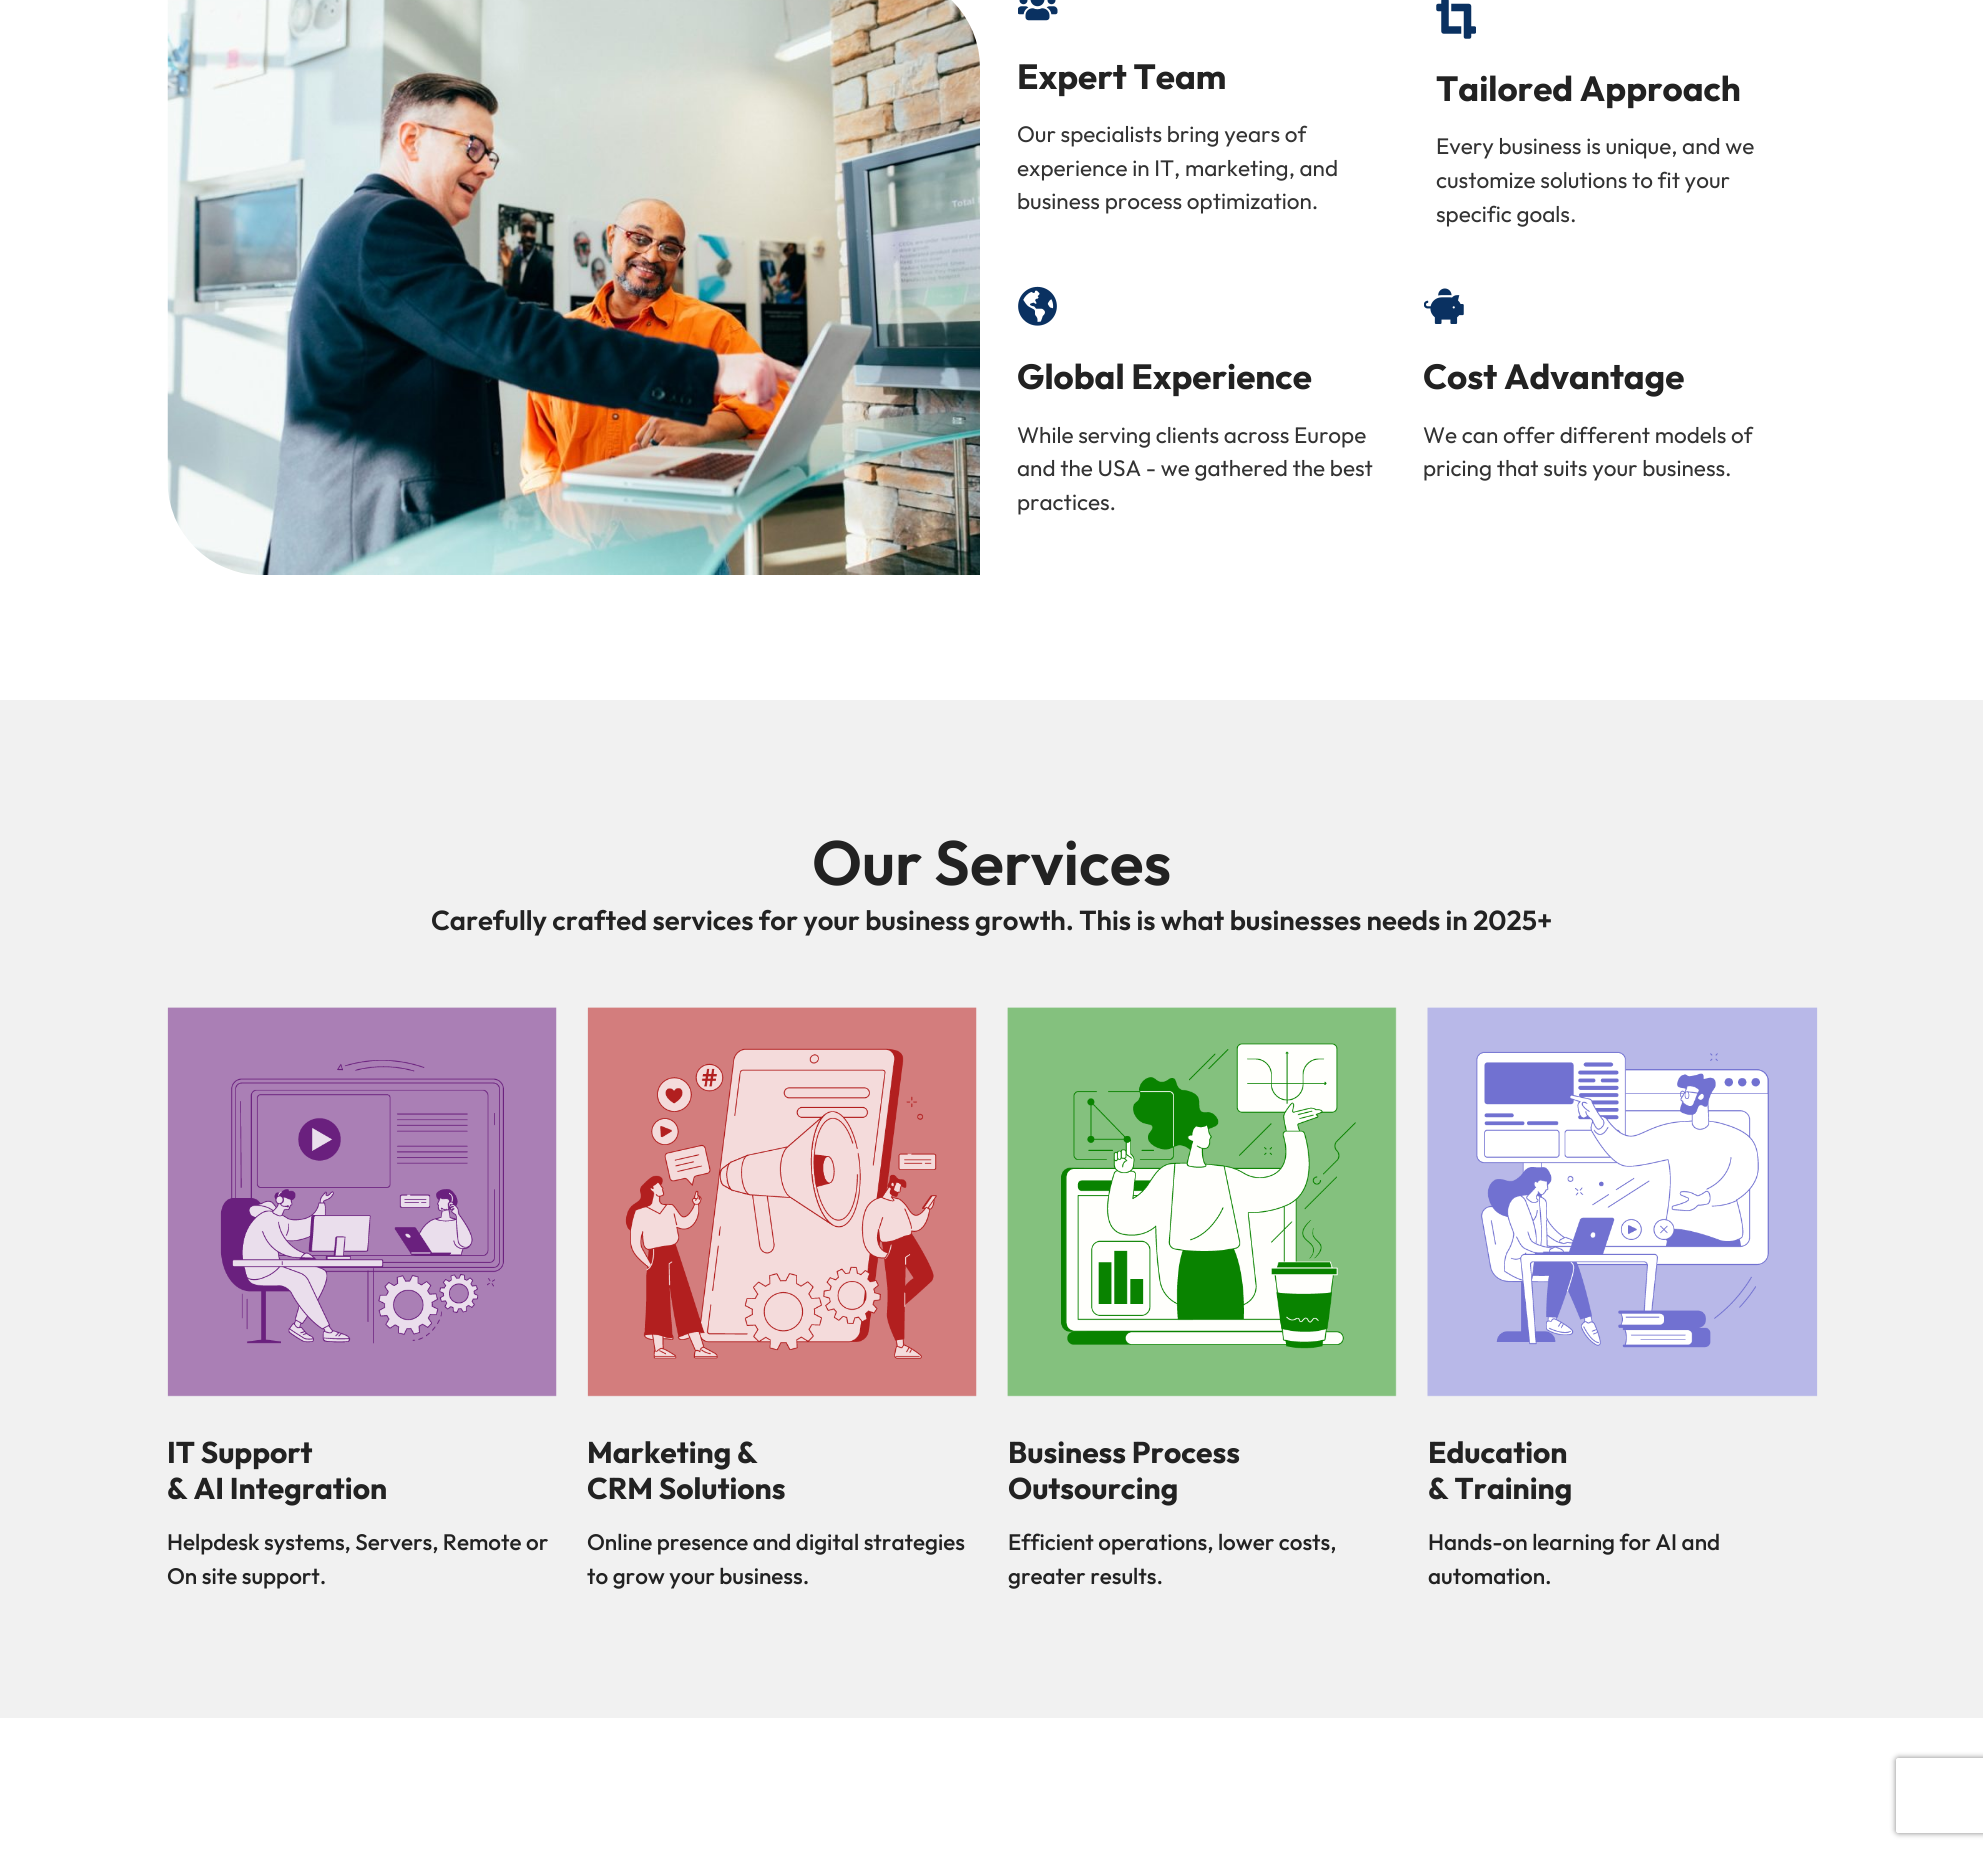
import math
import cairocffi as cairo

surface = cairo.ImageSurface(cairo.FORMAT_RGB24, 1983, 1850)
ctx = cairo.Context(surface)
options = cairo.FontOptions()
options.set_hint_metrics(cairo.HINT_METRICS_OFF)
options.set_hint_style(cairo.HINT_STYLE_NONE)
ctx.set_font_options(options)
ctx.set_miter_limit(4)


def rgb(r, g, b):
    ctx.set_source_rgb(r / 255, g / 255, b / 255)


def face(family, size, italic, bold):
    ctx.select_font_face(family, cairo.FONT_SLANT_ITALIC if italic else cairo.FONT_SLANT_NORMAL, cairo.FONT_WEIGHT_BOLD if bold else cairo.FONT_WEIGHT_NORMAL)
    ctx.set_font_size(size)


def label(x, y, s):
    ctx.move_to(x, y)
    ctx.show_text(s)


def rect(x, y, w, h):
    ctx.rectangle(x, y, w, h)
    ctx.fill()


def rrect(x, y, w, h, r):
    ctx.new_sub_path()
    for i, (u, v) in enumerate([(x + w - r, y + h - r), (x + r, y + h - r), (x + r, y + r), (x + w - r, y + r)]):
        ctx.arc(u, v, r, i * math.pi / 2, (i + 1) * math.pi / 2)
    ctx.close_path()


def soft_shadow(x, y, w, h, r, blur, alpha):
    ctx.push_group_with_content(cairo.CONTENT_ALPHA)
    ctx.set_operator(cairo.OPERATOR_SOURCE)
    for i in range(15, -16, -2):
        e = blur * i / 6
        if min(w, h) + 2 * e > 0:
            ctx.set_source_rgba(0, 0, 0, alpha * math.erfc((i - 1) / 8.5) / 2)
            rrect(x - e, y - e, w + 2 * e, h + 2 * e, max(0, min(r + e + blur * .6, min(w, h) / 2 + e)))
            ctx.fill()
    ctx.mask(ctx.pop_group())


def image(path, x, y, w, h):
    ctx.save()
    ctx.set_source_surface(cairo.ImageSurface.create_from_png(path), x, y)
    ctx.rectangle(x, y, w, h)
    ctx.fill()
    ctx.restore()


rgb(255, 255, 255)
ctx.paint()
image('image0.png', 167, 0, 813, 575)
image('image1.png', 1018, 0, 40, 21)
face('Outfit', 35, 0, 1)
rgb(34, 34, 34)
label(1017, 89, 'Expert Team')
face('Outfit', 22.5, 0, 0)
rgb(51, 51, 51)
label(1017, 142, 'Our specialists bring years of')
label(1017, 176, 'experience in IT, marketing, and')
label(1017, 209, 'business process optimization.')
image('image2.png', 1436, 0, 40, 39)
face('Outfit', 35, 0, 1)
rgb(34, 34, 34)
label(1436, 101, 'Tailored Approach')
face('Outfit', 22.5, 0, 0)
rgb(51, 51, 51)
label(1436, 154, 'Every business is unique, and we')
label(1436, 188, 'customize solutions to fit your')
label(1436, 222, 'specific goals.')
image('image3.png', 1018, 286, 39, 40)
face('Outfit', 35, 0, 1)
rgb(34, 34, 34)
label(1017, 389, 'Global Experience')
face('Outfit', 22.5, 0, 0)
rgb(51, 51, 51)
label(1017, 443, 'While serving clients across Europe')
label(1017, 476, 'and the USA - we gathered the best')
label(1017, 510, 'practices.')
image('image4.png', 1424, 288, 40, 36)
face('Outfit', 35, 0, 1)
rgb(34, 34, 34)
label(1423, 389, 'Cost Advantage')
face('Outfit', 22.5, 0, 0)
rgb(51, 51, 51)
label(1423, 443, 'We can offer different models of')
label(1423, 476, 'pricing that suits your business.')
rgb(241, 241, 241)
rect(0, 700, 1983, 1018)
face('Outfit SemiBold', 62.5, 0, 0)
rgb(34, 34, 34)
label(812, 885, 'Our Services')
face('Outfit SemiBold', 27.5, 0, 0)
label(431, 930, 'Carefully crafted services for your business growth. This is what businesses needs in 2025+')
image('image5.png', 167, 1007, 390, 390)
face('Outfit', 30, 0, 1)
label(167, 1463, 'IT Support')
label(167, 1499, '& AI Integration')
face('Outfit Medium', 22.5, 0, 0)
label(167, 1550, 'Helpdesk systems, Servers, Remote or')
label(167, 1584, 'On site support.')
image('image6.png', 587, 1007, 390, 390)
face('Outfit', 30, 0, 1)
label(587, 1463, 'Marketing &')
label(587, 1499, 'CRM Solutions')
face('Outfit Medium', 22.5, 0, 0)
label(587, 1550, 'Online presence and digital strategies')
label(587, 1584, 'to grow your business.')
image('image7.png', 1007, 1007, 390, 390)
face('Outfit', 30, 0, 1)
label(1008, 1463, 'Business Process')
label(1008, 1499, 'Outsourcing')
face('Outfit Medium', 22.5, 0, 0)
label(1008, 1550, 'Efficient operations, lower costs,')
label(1008, 1584, 'greater results.')
image('image8.png', 1427, 1007, 391, 390)
face('Outfit', 30, 0, 1)
label(1428, 1463, 'Education')
label(1428, 1499, '& Training')
face('Outfit Medium', 22.5, 0, 0)
label(1428, 1550, 'Hands-on learning for AI and')
label(1428, 1584, 'automation.')
ctx.save()
ctx.set_fill_rule(cairo.FILL_RULE_EVEN_ODD)
ctx.new_path()
ctx.move_to(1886, 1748)
ctx.line_to(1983, 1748)
ctx.line_to(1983, 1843)
ctx.line_to(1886, 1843)
ctx.close_path()
ctx.move_to(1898.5, 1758)
ctx.line_to(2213.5, 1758)
ctx.curve_to(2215, 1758, 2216, 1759, 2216, 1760.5)
ctx.line_to(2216, 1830.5)
ctx.curve_to(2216, 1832, 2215, 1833, 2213.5, 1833)
ctx.line_to(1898.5, 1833)
ctx.curve_to(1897, 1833, 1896, 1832, 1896, 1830.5)
ctx.line_to(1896, 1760.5)
ctx.curve_to(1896, 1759, 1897, 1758, 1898.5, 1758)
ctx.close_path()
ctx.clip()
rgb(128, 128, 128)
soft_shadow(1896, 1758, 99, 75, 2.5, 3, 1)
ctx.restore()
surface.write_to_png('render.png')
